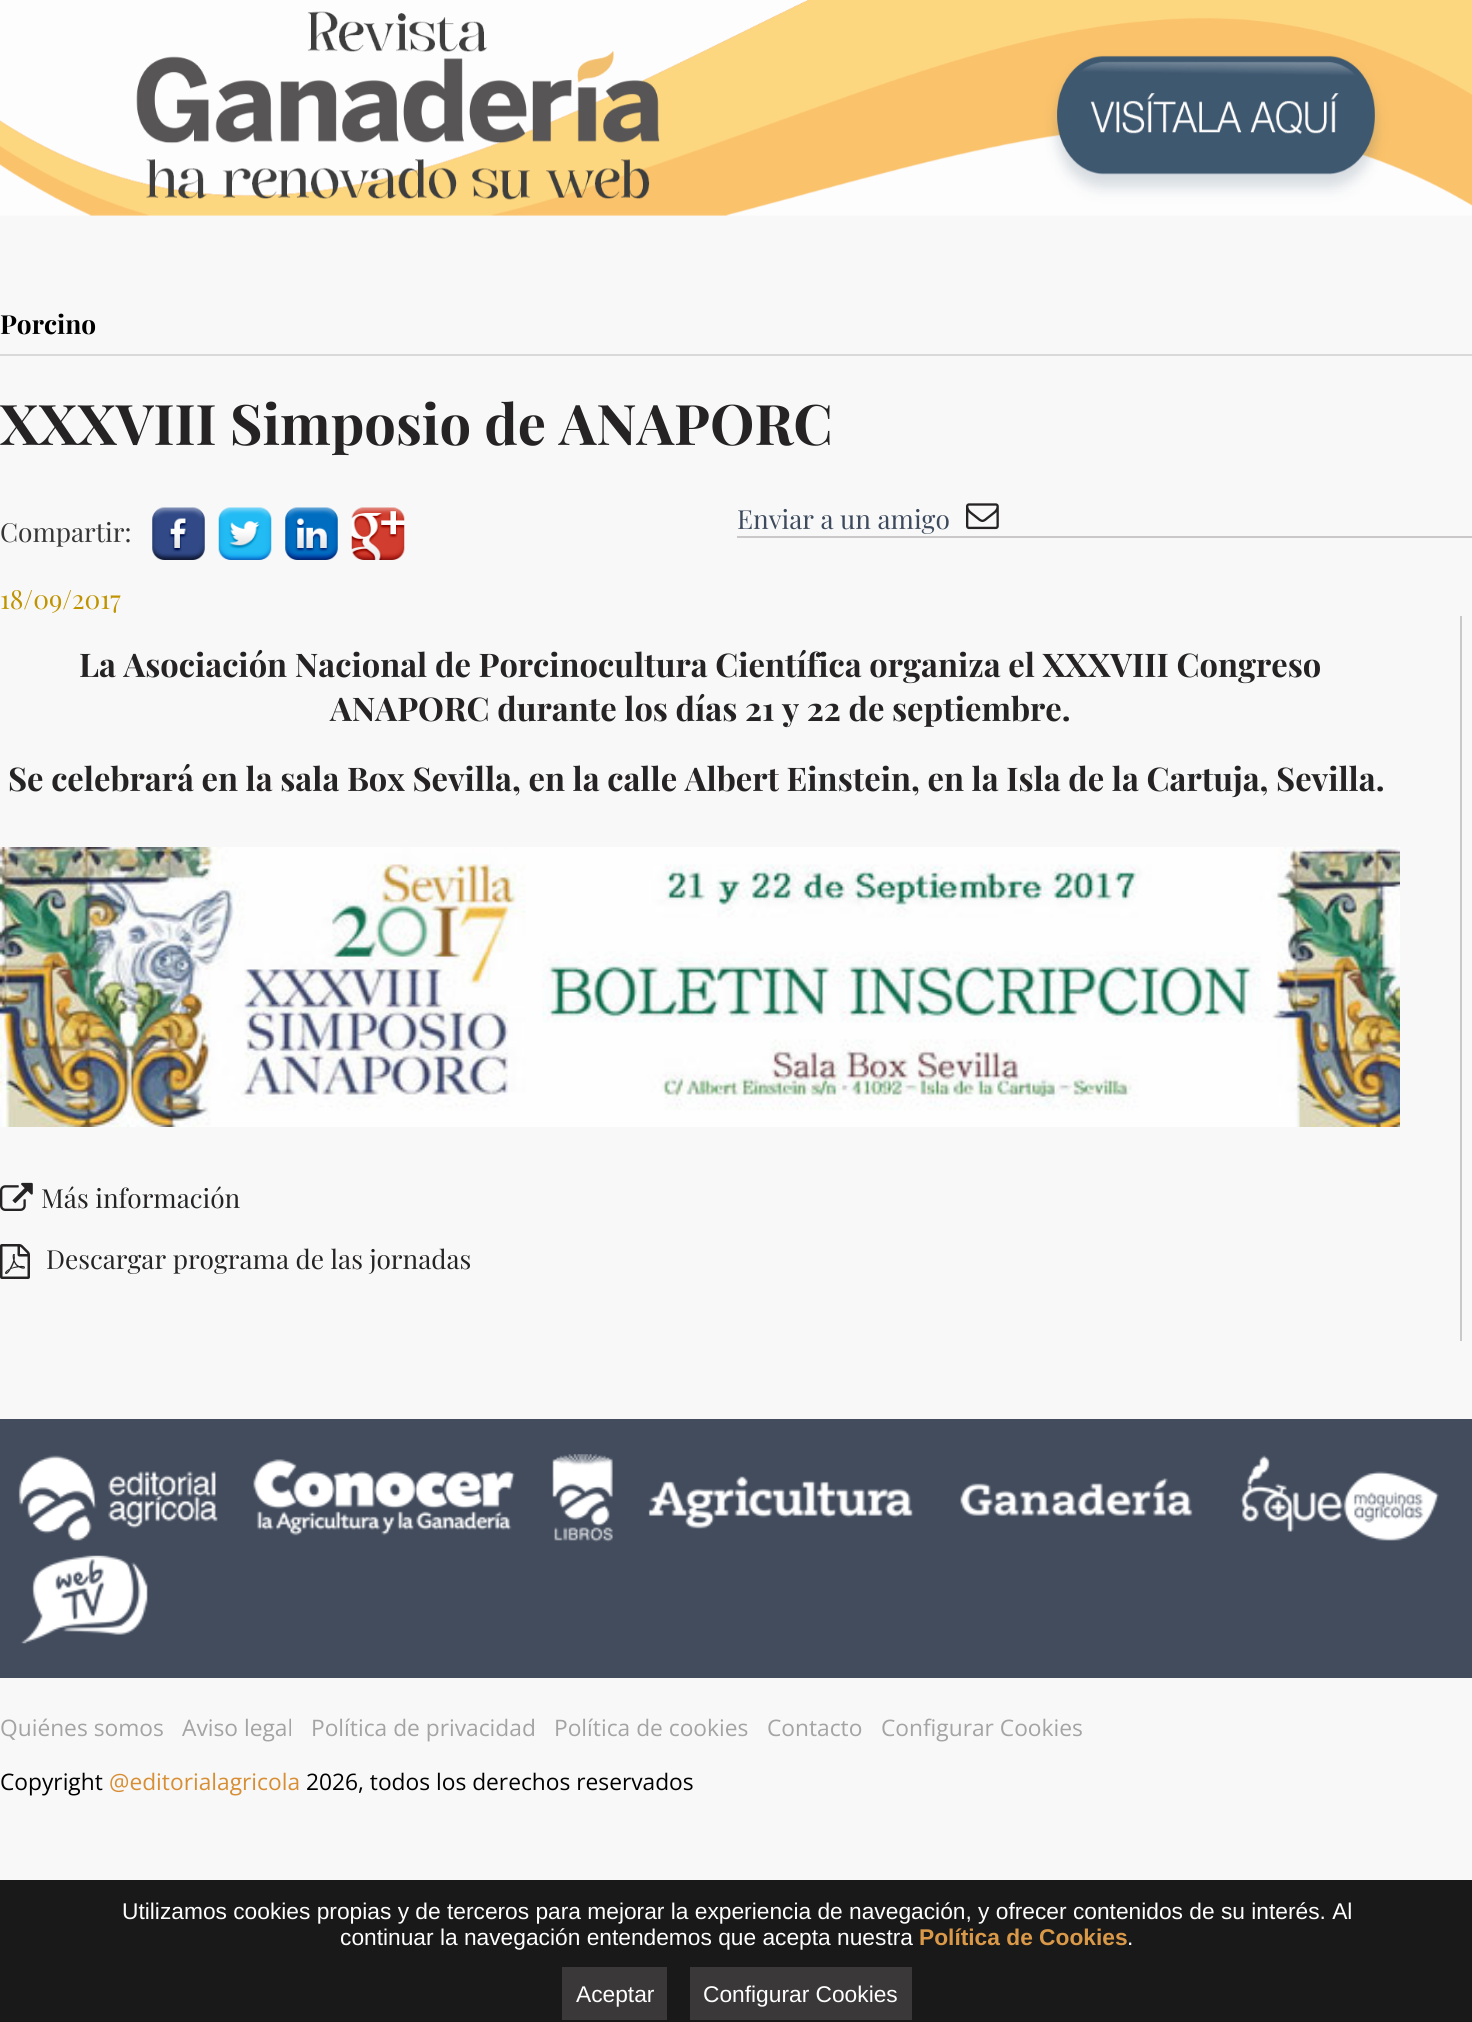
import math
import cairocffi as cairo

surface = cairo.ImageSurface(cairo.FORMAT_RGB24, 1472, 2022)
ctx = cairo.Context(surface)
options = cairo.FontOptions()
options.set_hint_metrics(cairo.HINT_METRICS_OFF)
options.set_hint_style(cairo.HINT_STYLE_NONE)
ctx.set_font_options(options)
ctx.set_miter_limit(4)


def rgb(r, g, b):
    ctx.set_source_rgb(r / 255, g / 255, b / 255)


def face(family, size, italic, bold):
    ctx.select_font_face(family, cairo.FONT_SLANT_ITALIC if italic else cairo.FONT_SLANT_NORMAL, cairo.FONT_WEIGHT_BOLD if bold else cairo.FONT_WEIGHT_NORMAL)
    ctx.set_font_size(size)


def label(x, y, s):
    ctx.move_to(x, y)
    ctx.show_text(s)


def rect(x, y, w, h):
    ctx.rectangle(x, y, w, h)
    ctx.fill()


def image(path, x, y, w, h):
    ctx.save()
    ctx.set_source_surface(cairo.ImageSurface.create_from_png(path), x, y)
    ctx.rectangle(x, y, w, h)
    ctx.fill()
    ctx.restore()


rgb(248, 248, 248)
ctx.paint()
image('image0.png', 0, 0, 1472, 216)
face('Playfair Display', 26.25, 0, 1)
rgb(0, 0, 0)
label(0, 334, 'Porcino')
rgb(217, 217, 217)
rect(0, 354, 1472, 2)
face('Playfair Display', 56, 0, 1)
rgb(37, 35, 35)
label(0, 445, 'XXXVIII Simposio de ANAPORC')
face('Playfair Display', 26.25, 0, 0)
rgb(54, 54, 54)
label(0, 542, 'Compartir:')
image('image1.png', 152, 507, 53, 53)
image('image2.png', 218, 507, 54, 53)
image('image3.png', 285, 507, 53, 53)
image('image4.png', 351, 507, 54, 53)
rgb(202, 200, 200)
rect(737, 536, 735, 2)
rgb(61, 74, 93)
label(737, 529, 'Enviar a un amigo')
image('image5.png', 966, 503, 33, 27)
rgb(192, 147, 0)
label(0, 609, '18/09/2017')
rgb(202, 200, 200)
rect(1460, 616, 2, 725)
face('Playfair Display', 32.65, 0, 1)
rgb(37, 35, 35)
label(79, 677, 'La Asociación Nacional de Porcinocultura Científica organiza el XXXVIII Congreso')
label(330, 721, 'ANAPORC durante los días 21 y 22 de septiembre.')
label(8, 791, 'Se celebrará en la sala Box Sevilla, en la calle Albert Einstein, en la Isla de la Cartuja, Sevilla.')
image('image6.png', 0, 847, 1400, 280)
image('image7.png', 0, 1182, 33, 29)
face('Playfair Display', 26.25, 0, 0)
label(41, 1208, 'Más información')
image('image8.png', 0, 1244, 30, 35)
label(46, 1269, 'Descargar programa de las jornadas')
rgb(66, 76, 93)
rect(0, 1419, 1472, 259)
image('image9.png', 18, 1455, 200, 86)
image('image10.png', 253, 1459, 262, 77)
image('image11.png', 552, 1454, 61, 88)
image('image12.png', 648, 1476, 266, 53)
image('image13.png', 960, 1478, 233, 38)
image('image14.png', 1240, 1455, 199, 86)
image('image15.png', 20, 1555, 128, 89)
face('Open Sans', 22.75, 0, 0)
rgb(164, 164, 164)
label(0, 1736, 'Quiénes somos')
label(182, 1736, 'Aviso legal')
label(311, 1736, 'Política de privacidad')
label(554, 1736, 'Política de cookies')
label(767, 1736, 'Contacto')
label(881, 1736, 'Configurar Cookies')
rgb(0, 0, 0)
label(0, 1790, 'Copyright')
rgb(215, 142, 52)
label(109, 1790, '@editorialagricola')
rgb(0, 0, 0)
label(306, 1790, '2026, todos los derechos reservados')
rgb(25, 25, 25)
rect(0, 1880, 1472, 142)
face('Liberation Sans', 22.75, 0, 0)
rgb(254, 254, 254)
label(122, 1919, 'Utilizamos cookies propias y de terceros para mejorar la experiencia de navegación, y ofrecer contenidos de su interés. Al')
label(340, 1945, 'continuar la navegación entendemos que acepta nuestra')
face('Liberation Sans', 22.75, 0, 1)
rgb(218, 153, 72)
label(919, 1945, 'Política de Cookies')
face('Liberation Sans', 22.75, 0, 0)
rgb(254, 254, 254)
label(1127, 1945, '.')
rgb(58, 56, 56)
rect(562, 1967, 105, 53)
rgb(254, 254, 254)
label(576, 2002, 'Aceptar')
rgb(58, 56, 56)
rect(690, 1967, 222, 53)
rgb(254, 254, 254)
label(703, 2002, 'Configurar Cookies')
surface.write_to_png('render.png')
